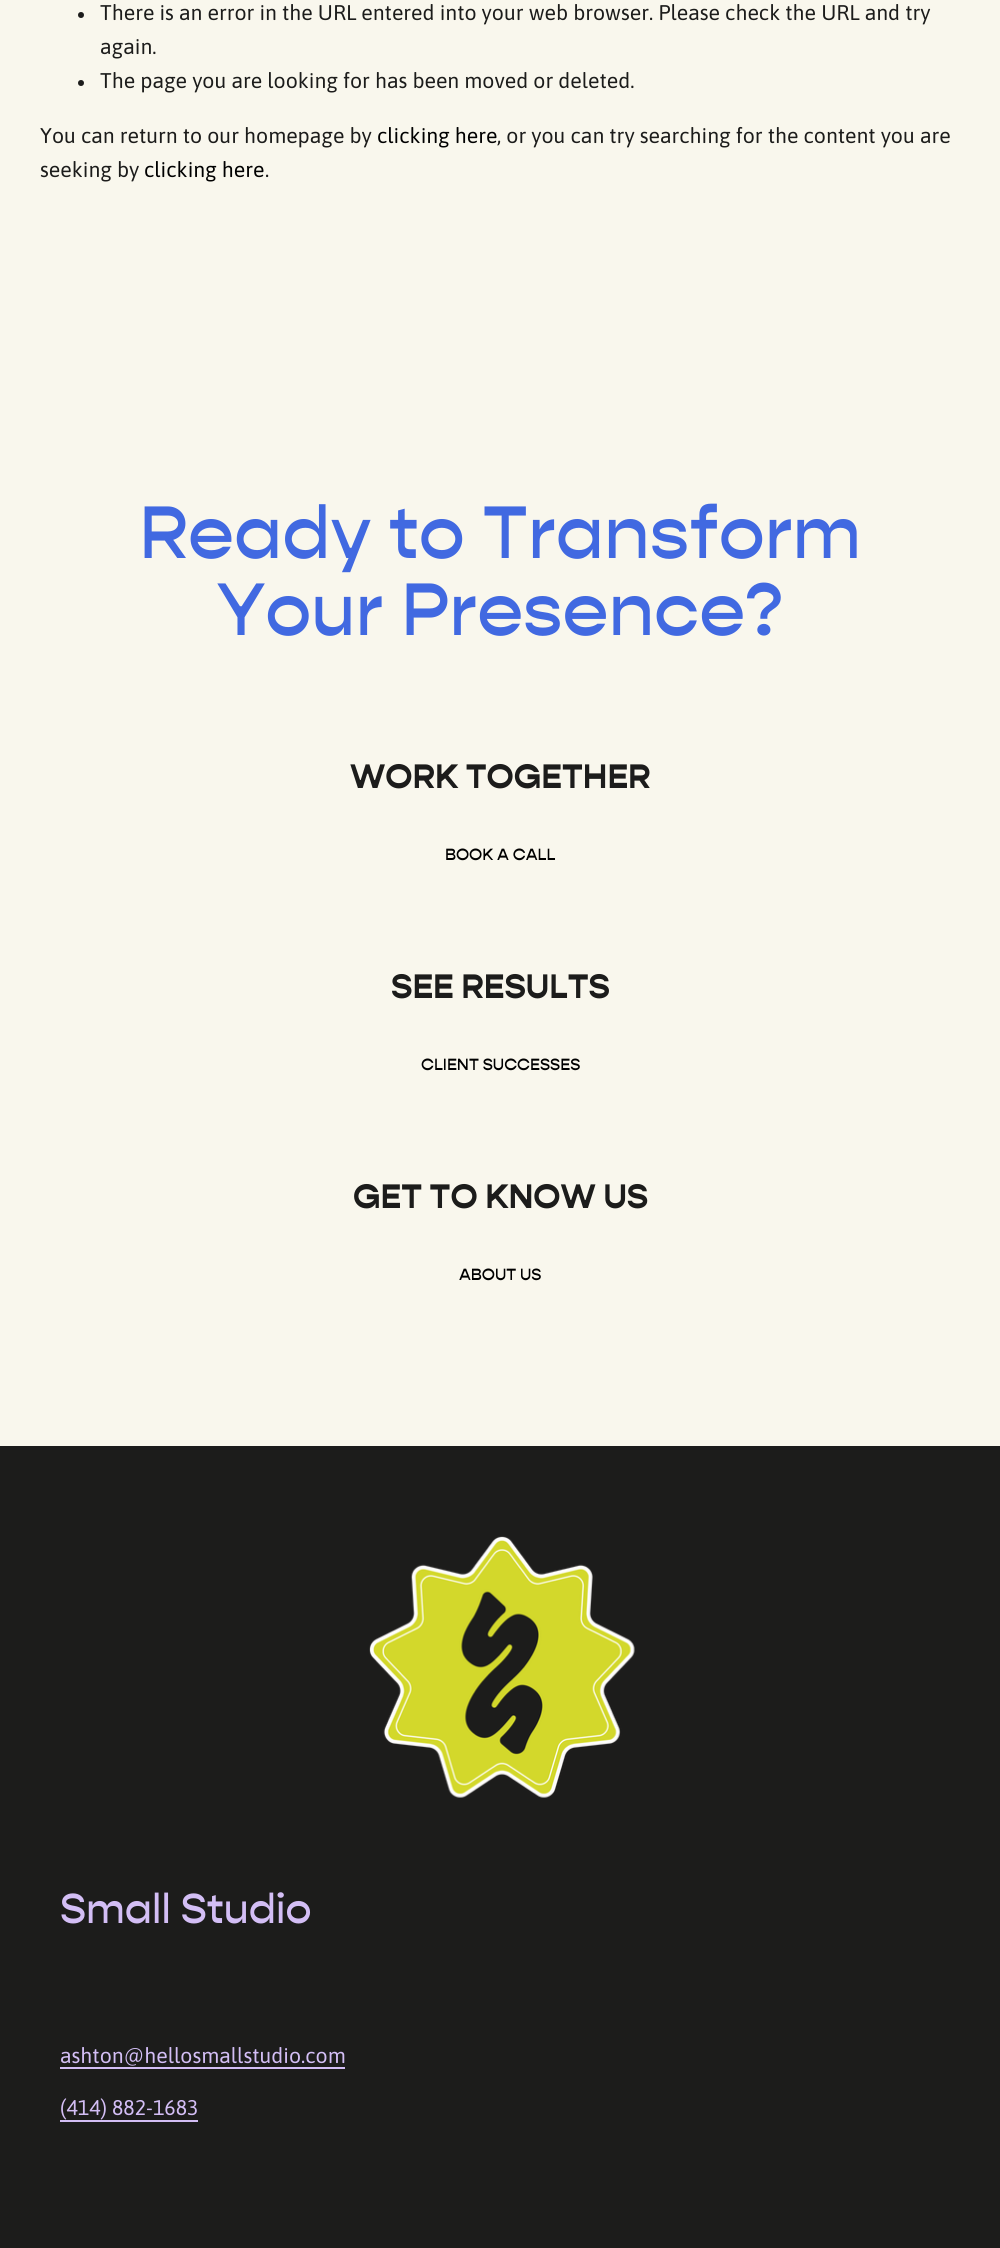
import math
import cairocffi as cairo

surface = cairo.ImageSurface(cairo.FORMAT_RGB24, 1000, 2248)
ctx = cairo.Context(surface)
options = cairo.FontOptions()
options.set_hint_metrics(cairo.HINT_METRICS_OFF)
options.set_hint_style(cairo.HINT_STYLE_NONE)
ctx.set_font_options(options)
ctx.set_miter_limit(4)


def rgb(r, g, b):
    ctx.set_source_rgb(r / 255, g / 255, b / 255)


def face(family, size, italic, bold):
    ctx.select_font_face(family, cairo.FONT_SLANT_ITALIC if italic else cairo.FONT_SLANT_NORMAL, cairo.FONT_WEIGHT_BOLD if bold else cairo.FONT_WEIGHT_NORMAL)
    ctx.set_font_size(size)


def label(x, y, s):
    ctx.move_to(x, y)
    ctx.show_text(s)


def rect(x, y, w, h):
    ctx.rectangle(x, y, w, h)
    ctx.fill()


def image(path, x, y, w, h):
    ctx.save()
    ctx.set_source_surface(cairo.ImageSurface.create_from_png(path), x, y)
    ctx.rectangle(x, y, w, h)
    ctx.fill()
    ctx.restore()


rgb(249, 247, 237)
ctx.paint()
rgb(28, 28, 27)
ctx.arc(81, 15, 3, 0, 2 * math.pi)
ctx.fill()
face('Asap', 21.25, 0, 0)
label(100, 20, 'There is an error in the URL entered into your web browser. Please check the URL and try')
label(100, 54, 'again.')
ctx.new_path()
ctx.arc(81, 83, 3, 0, 2 * math.pi)
ctx.fill()
label(100, 88, 'The page you are looking for has been moved or deleted.')
label(40, 143, 'You can return to our homepage by')
rgb(0, 0, 0)
label(377, 143, 'clicking here')
rgb(28, 28, 27)
label(497, 143, ', or you can try searching for the content you are')
label(40, 177, 'seeking by')
rgb(0, 0, 0)
label(144, 177, 'clicking here')
rgb(28, 28, 27)
label(265, 177, '.')
face('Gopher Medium', 74.75, 0, 0)
rgb(65, 105, 225)
label(139, 558, 'Ready to Transform')
label(217, 635, 'Your Presence?')
face('Gopher', 34.25, 0, 1)
rgb(28, 28, 27)
label(350, 788, 'WORK TOGETHER')
face('Gopher Medium', 16.4, 0, 0)
rgb(0, 0, 0)
label(445, 860, 'BOOK A CALL')
face('Gopher', 34.25, 0, 1)
rgb(28, 28, 27)
label(391, 998, 'SEE RESULTS')
face('Gopher Medium', 16.4, 0, 0)
rgb(0, 0, 0)
label(421, 1070, 'CLIENT SUCCESSES')
face('Gopher', 34.25, 0, 1)
rgb(28, 28, 27)
label(353, 1208, 'GET TO KNOW US')
face('Gopher Medium', 16.4, 0, 0)
rgb(0, 0, 0)
label(459, 1280, 'ABOUT US')
rgb(28, 28, 27)
rect(0, 1446, 1000, 802)
image('image0.png', 369, 1536, 266, 262)
face('Gopher Medium', 42.25, 0, 0)
rgb(211, 190, 245)
label(60, 1923, 'Small Studio')
face('Asap', 21.25, 0, 0)
label(60, 2063, 'ashton@hellosmallstudio.com')
rect(60, 2067, 285, 2)
label(60, 2115, '(414) 882-1683')
rect(60, 2120, 138, 2)
surface.write_to_png('render.png')
